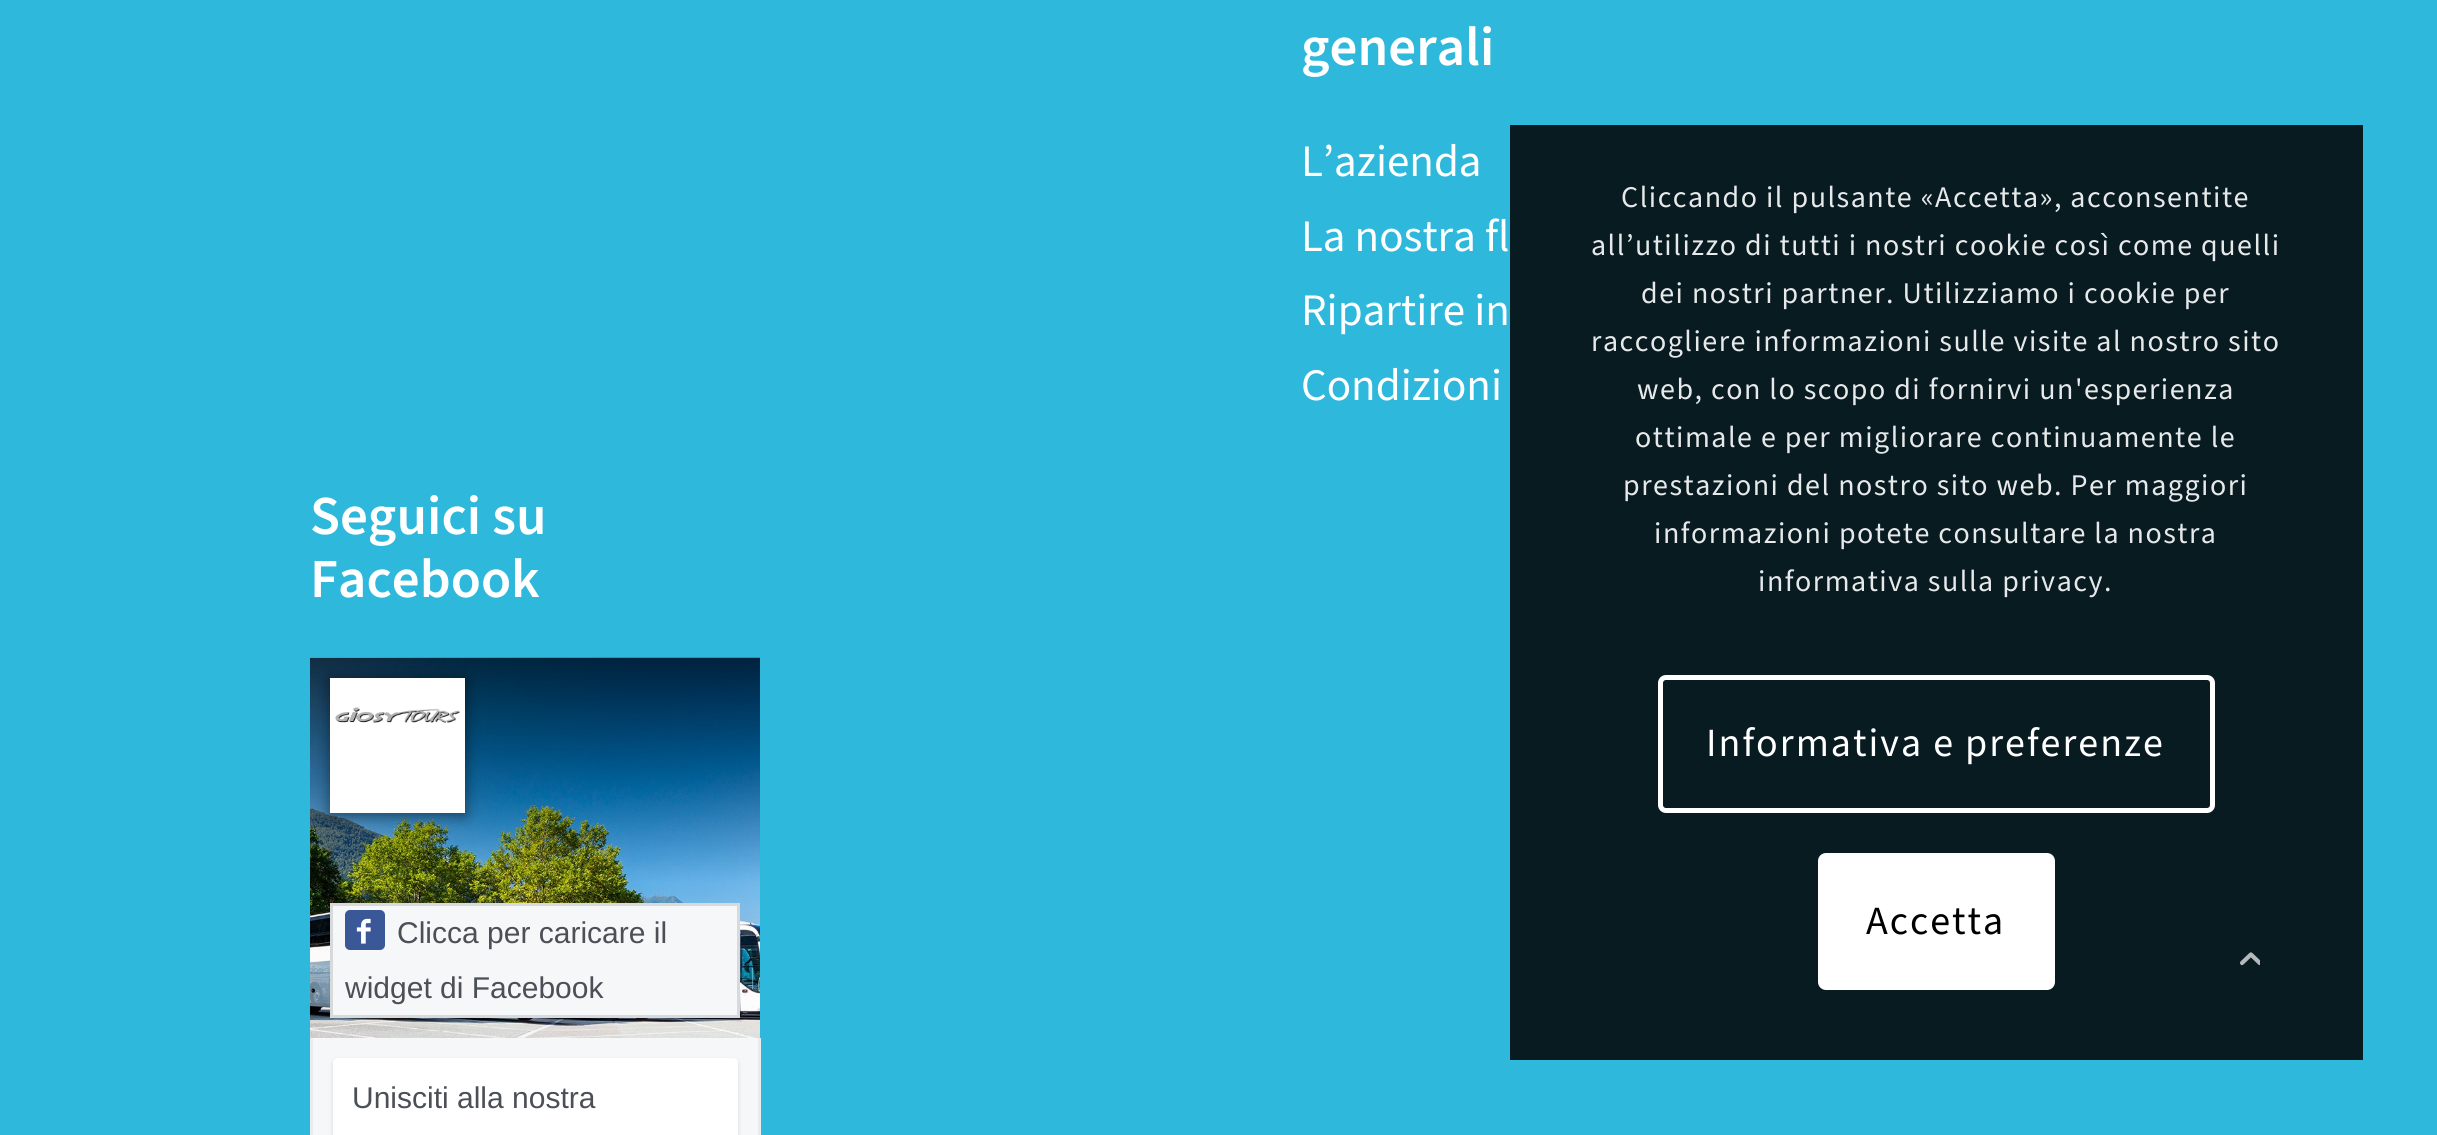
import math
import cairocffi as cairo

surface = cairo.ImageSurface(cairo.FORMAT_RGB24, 2437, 1135)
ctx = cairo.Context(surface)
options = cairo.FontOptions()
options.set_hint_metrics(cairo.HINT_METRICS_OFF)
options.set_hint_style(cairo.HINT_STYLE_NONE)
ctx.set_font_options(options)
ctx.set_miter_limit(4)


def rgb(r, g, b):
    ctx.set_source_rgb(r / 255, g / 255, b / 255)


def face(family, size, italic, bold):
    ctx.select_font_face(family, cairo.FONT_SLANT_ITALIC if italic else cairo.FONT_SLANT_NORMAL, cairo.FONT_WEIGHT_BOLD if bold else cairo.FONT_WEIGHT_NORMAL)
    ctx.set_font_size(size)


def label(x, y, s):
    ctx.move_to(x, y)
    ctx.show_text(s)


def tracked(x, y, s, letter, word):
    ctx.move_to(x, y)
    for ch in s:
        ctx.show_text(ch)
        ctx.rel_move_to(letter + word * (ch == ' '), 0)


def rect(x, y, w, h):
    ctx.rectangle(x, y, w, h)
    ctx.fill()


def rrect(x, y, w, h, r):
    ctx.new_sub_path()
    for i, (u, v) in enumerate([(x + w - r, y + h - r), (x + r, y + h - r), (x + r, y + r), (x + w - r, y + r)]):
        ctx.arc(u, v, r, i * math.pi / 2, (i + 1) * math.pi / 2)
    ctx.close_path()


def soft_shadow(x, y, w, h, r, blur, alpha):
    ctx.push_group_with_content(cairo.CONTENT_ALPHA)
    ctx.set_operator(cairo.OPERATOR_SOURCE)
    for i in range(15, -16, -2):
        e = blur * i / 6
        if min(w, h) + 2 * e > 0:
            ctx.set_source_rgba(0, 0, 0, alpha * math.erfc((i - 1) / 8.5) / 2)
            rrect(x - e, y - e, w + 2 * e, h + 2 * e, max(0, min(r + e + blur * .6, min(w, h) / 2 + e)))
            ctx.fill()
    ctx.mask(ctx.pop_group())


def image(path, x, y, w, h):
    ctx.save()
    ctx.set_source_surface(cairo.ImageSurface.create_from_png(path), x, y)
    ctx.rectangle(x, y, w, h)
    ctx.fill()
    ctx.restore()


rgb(46, 184, 219)
ctx.paint()
face('Source Sans 3 SemiBold', 55, 0, 0)
rgb(255, 255, 255)
label(1301, 65, 'generali')
face('Source Sans 3', 45, 0, 0)
label(1301, 176, 'L’azienda')
label(1301, 251, 'La nostra fl')
label(1301, 325, 'Ripartire in')
label(1301, 400, 'Condizioni')
face('Source Sans 3 SemiBold', 55, 0, 0)
label(310, 534, 'Seguici su')
label(310, 597, 'Facebook')
image('image0.png', 310, 657, 450, 381)
rgb(0, 0, 0)
soft_shadow(330, 680, 135, 135, 0, 7.5, 0.5)
rgb(255, 255, 255)
rect(330, 678, 135, 135)
image('image1.png', 335, 707, 125, 16)
rgb(246, 247, 249)
ctx.rectangle(331.5, 904.5, 407, 112)
ctx.fill_preserve()
rgb(216, 217, 219)
ctx.set_line_width(3)
ctx.stroke()
rgb(58, 87, 151)
rrect(345, 910, 40, 40, 5)
ctx.fill()
image('image2.png', 356, 918, 15, 26)
face('Liberation Sans', 30, 0, 0)
rgb(75, 79, 86)
label(397, 943, 'Clicca per caricare il')
label(345, 998, 'widget di Facebook')
rgb(246, 247, 249)
rect(313, 1038, 445, 97)
rgb(233, 235, 238)
rect(758, 1038, 3, 97)
rect(310, 1038, 3, 97)
rgb(0, 0, 0)
soft_shadow(333, 1060, 405, 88, 5, 2.5, 0.12)
rgb(255, 255, 255)
rrect(333, 1058, 405, 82, 5)
ctx.fill()
rgb(75, 79, 86)
label(352, 1108, 'Unisciti alla nostra')
ctx.set_source_rgba(0, 0, 0, 0.85)
rect(1510, 125, 853, 935)
face('Source Sans 3', 30, 0, 0)
rgb(230, 232, 233)
tracked(1621, 207, 'Cliccando il pulsante «Accetta», acconsentite', 1.5, 0)
tracked(1591, 255, 'all’utilizzo di tutti i nostri cookie così come quelli', 1.5, 0)
tracked(1641, 303, 'dei nostri partner. Utilizziamo i cookie per', 1.5, 0)
tracked(1591, 351, 'raccogliere informazioni sulle visite al nostro sito', 1.5, 0)
tracked(1637, 399, 'web, con lo scopo di fornirvi un\'esperienza', 1.5, 0)
tracked(1635, 447, 'ottimale e per migliorare continuamente le', 1.5, 0)
tracked(1623, 495, 'prestazioni del nostro sito web. Per maggiori', 1.5, 0)
tracked(1654, 543, 'informazioni potete consultare la nostra', 1.5, 0)
tracked(1758, 591, 'informativa sulla privacy.', 1.5, 0)
rrect(1660.5, 677.5, 552, 133, 5.5)
rgb(255, 255, 255)
ctx.set_line_width(5)
ctx.stroke()
face('Source Sans 3', 40, 0, 0)
tracked(1706, 756, 'Informativa e preferenze', 2, 0)
rrect(1818, 853, 237, 137, 8)
ctx.fill()
rgb(0, 0, 0)
tracked(1866, 934, 'Accetta', 2, 0)
image('image3.png', 2240, 952, 20, 14)
surface.write_to_png('render.png')
